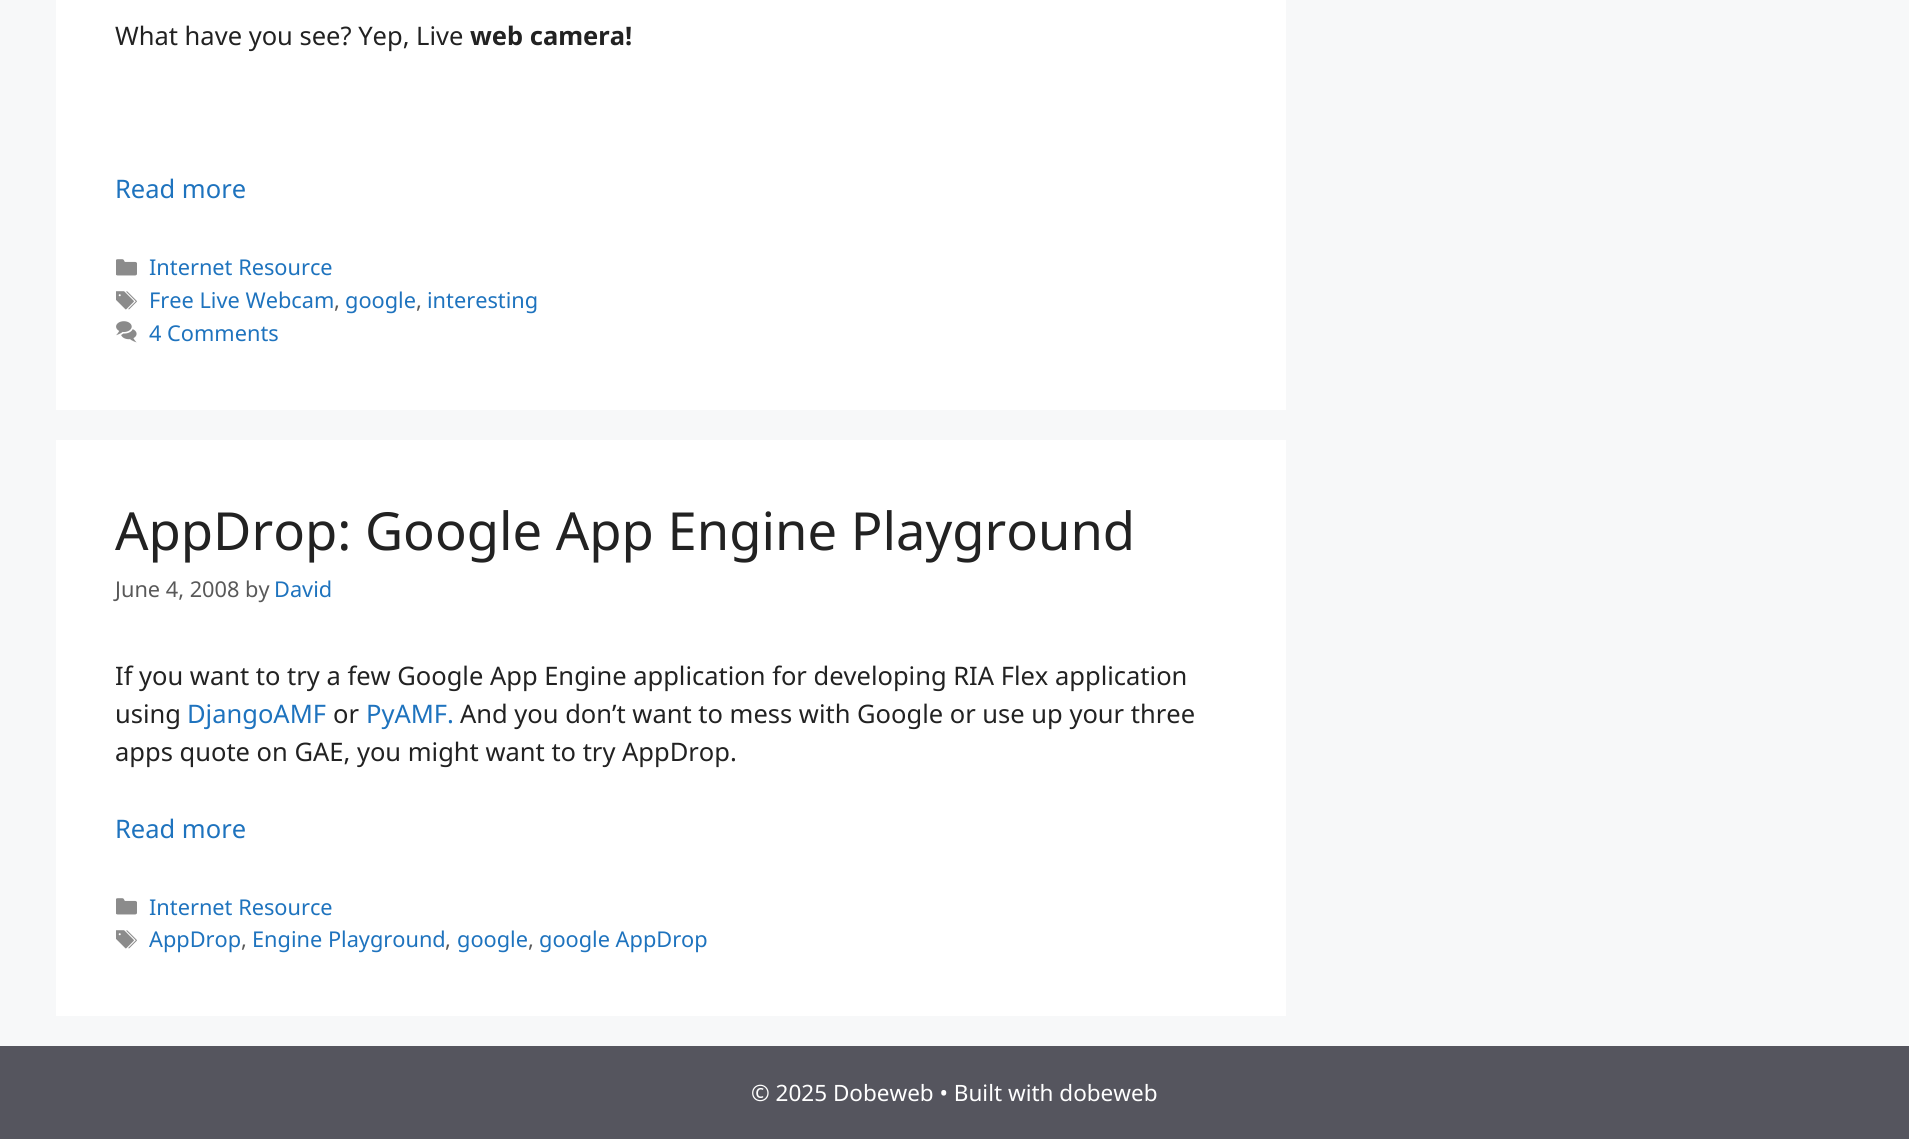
import math
import cairocffi as cairo

surface = cairo.ImageSurface(cairo.FORMAT_RGB24, 1909, 1139)
ctx = cairo.Context(surface)
options = cairo.FontOptions()
options.set_hint_metrics(cairo.HINT_METRICS_OFF)
options.set_hint_style(cairo.HINT_STYLE_NONE)
ctx.set_font_options(options)
ctx.set_miter_limit(4)


def rgb(r, g, b):
    ctx.set_source_rgb(r / 255, g / 255, b / 255)


def face(family, size, italic, bold):
    ctx.select_font_face(family, cairo.FONT_SLANT_ITALIC if italic else cairo.FONT_SLANT_NORMAL, cairo.FONT_WEIGHT_BOLD if bold else cairo.FONT_WEIGHT_NORMAL)
    ctx.set_font_size(size)


def label(x, y, s):
    ctx.move_to(x, y)
    ctx.show_text(s)


def rect(x, y, w, h):
    ctx.rectangle(x, y, w, h)
    ctx.fill()


def image(path, x, y, w, h):
    ctx.save()
    ctx.set_source_surface(cairo.ImageSurface.create_from_png(path), x, y)
    ctx.rectangle(x, y, w, h)
    ctx.fill()
    ctx.restore()


rgb(247, 248, 249)
ctx.paint()
rgb(255, 255, 255)
rect(56, 0, 1230, 410)
face('Noto Sans', 25.5, 0, 0)
rgb(34, 34, 34)
label(115, 45, 'What have you see? Yep, Live')
face('Noto Sans', 25.5, 0, 1)
label(470, 45, 'web camera!')
face('Noto Sans', 25.5, 0, 0)
rgb(30, 115, 190)
label(115, 198, 'Read more')
image('image0.png', 116, 259, 21, 17)
face('Noto Sans', 21.75, 0, 0)
label(149, 275, 'Internet Resource')
image('image1.png', 116, 291, 21, 19)
label(149, 308, 'Free Live Webcam')
rgb(89, 89, 89)
label(334, 308, ',')
rgb(30, 115, 190)
label(345, 308, 'google')
rgb(89, 89, 89)
label(416, 308, ',')
rgb(30, 115, 190)
label(427, 308, 'interesting')
image('image2.png', 116, 321, 21, 22)
label(149, 341, '4 Comments')
rgb(255, 255, 255)
rect(56, 440, 1230, 576)
face('Noto Sans', 52.5, 0, 0)
rgb(34, 34, 34)
label(115, 550, 'AppDrop: Google App Engine Playground')
face('Noto Sans', 21.75, 0, 0)
rgb(89, 89, 89)
label(115, 597, 'June 4, 2008 by')
rgb(30, 115, 190)
label(274, 597, 'David')
face('Noto Sans', 25.5, 0, 0)
rgb(34, 34, 34)
label(115, 685, 'If you want to try a few Google App Engine application for developing RIA Flex application')
label(115, 723, 'using')
rgb(30, 115, 190)
label(187, 723, 'DjangoAMF')
rgb(34, 34, 34)
label(333, 723, 'or')
rgb(30, 115, 190)
label(366, 723, 'PyAMF.')
rgb(34, 34, 34)
label(460, 723, 'And you don’t want to mess with Google or use up your three')
label(115, 761, 'apps quote on GAE, you might want to try AppDrop.')
rgb(30, 115, 190)
label(115, 838, 'Read more')
image('image0.png', 116, 898, 21, 17)
face('Noto Sans', 21.75, 0, 0)
label(149, 915, 'Internet Resource')
image('image1.png', 116, 930, 21, 19)
label(149, 947, 'AppDrop')
rgb(89, 89, 89)
label(241, 947, ',')
rgb(30, 115, 190)
label(252, 947, 'Engine Playground')
rgb(89, 89, 89)
label(445, 947, ',')
rgb(30, 115, 190)
label(457, 947, 'google')
rgb(89, 89, 89)
label(528, 947, ',')
rgb(30, 115, 190)
label(539, 947, 'google AppDrop')
rgb(85, 85, 94)
rect(0, 1046, 1909, 93)
face('Noto Sans', 22.5, 0, 0)
rgb(255, 255, 255)
label(751, 1101, '© 2025 Dobeweb • Built with dobeweb')
surface.write_to_png('render.png')
